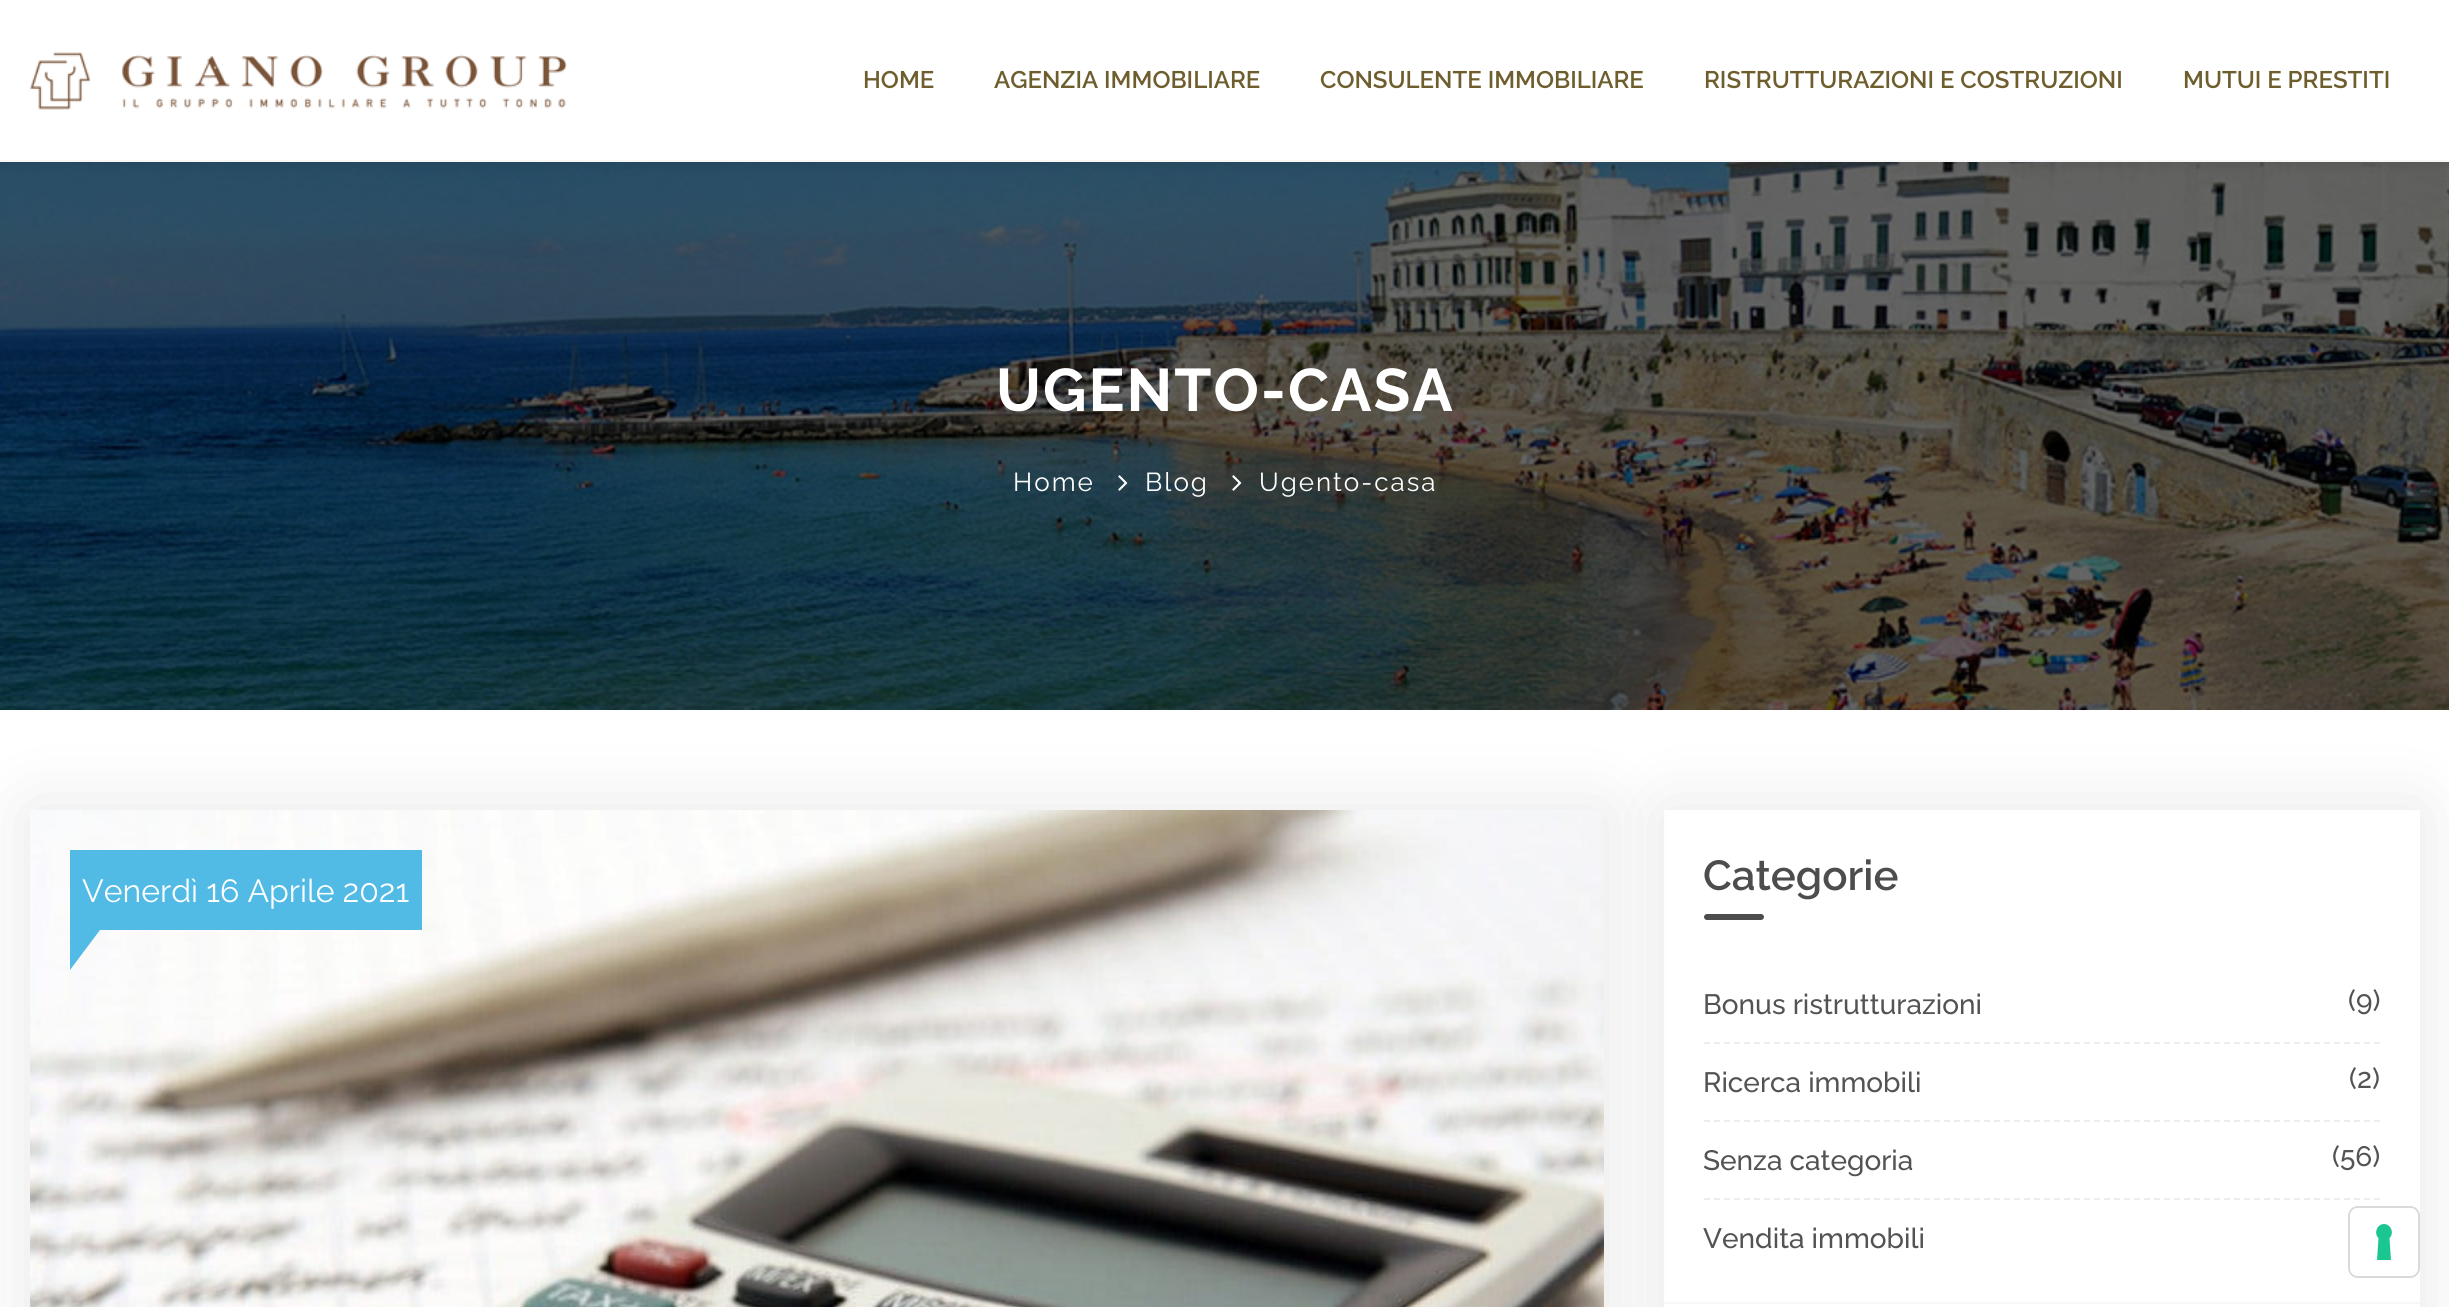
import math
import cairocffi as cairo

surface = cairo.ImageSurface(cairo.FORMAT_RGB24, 2449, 1307)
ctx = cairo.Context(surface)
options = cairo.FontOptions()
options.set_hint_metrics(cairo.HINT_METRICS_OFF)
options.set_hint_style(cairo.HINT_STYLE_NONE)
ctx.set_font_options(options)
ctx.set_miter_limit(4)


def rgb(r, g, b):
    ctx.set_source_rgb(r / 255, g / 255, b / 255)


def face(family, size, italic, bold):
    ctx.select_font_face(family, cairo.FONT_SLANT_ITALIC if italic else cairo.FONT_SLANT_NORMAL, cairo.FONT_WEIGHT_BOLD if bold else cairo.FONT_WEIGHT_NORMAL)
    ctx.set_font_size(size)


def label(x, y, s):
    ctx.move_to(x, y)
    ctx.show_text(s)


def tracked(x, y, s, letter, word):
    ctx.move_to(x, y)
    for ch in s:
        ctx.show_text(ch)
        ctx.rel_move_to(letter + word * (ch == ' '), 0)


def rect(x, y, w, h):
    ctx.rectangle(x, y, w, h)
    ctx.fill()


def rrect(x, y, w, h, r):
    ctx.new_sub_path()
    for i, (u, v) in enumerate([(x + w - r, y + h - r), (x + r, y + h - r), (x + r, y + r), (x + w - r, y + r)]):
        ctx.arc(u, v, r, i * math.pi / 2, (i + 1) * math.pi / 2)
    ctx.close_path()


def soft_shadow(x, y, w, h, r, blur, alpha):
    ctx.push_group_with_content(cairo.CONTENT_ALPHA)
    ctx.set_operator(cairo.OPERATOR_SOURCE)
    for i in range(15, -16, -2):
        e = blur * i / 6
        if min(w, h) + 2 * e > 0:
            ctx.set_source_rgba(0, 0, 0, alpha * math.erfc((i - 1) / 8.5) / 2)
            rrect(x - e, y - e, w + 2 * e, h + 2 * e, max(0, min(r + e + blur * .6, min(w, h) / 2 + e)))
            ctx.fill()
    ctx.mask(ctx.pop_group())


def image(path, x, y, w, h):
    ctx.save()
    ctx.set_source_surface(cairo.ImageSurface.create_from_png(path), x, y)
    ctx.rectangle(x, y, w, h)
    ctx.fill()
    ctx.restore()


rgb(255, 255, 255)
ctx.paint()
image('image1.png', 0, 162, 2449, 548)
rgb(0, 0, 0)
soft_shadow(0, 0, 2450, 162, 0, 8, 0.12)
rgb(255, 255, 255)
rect(0, 0, 2449, 160)
rgb(248, 248, 248)
rect(0, 160, 2449, 2)
image('image0.png', 30, 52, 537, 58)
face('Raleway SemiBold', 24, 0, 0)
rgb(111, 94, 45)
label(863, 88, 'HOME')
label(994, 88, 'AGENZIA IMMOBILIARE')
label(1320, 88, 'CONSULENTE IMMOBILIARE')
label(1704, 88, 'RISTRUTTURAZIONI E COSTRUZIONI')
label(2183, 88, 'MUTUI E PRESTITI')
face('Raleway', 60, 0, 1)
rgb(255, 255, 255)
tracked(996, 411, 'UGENTO-CASA', 2, 0)
face('Raleway', 26, 0, 0)
tracked(1013, 491, 'Home', 2, 0)
image('image2.png', 1118, 475, 10, 16)
tracked(1145, 491, 'Blog', 2, 0)
image('image3.png', 1232, 475, 10, 16)
tracked(1259, 491, 'Ugento-casa', 2, 0)
rgb(0, 0, 0)
soft_shadow(30, 810, 1574, 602, 0, 35, 0.1)
image('image4.png', 30, 810, 1574, 497)
rgb(81, 187, 229)
rect(70, 850, 352, 80)
face('Raleway', 32, 0, 0)
rgb(255, 255, 255)
label(82, 902, 'Venerdì 16 Aprile 2021')
rgb(81, 187, 229)
ctx.new_path()
ctx.move_to(70, 970)
ctx.line_to(70, 930)
ctx.line_to(100, 930)
ctx.close_path()
ctx.fill()
ctx.save()
ctx.set_fill_rule(cairo.FILL_RULE_EVEN_ODD)
ctx.new_path()
ctx.move_to(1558, 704)
ctx.line_to(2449, 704)
ctx.line_to(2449, 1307)
ctx.line_to(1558, 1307)
ctx.close_path()
ctx.move_to(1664, 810)
ctx.line_to(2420, 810)
ctx.line_to(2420, 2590)
ctx.line_to(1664, 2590)
ctx.close_path()
ctx.clip()
rgb(0, 0, 0)
soft_shadow(1664, 810, 756, 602, 0, 35, 0.1)
ctx.restore()
rgb(247, 247, 247)
rect(1664, 1302, 756, 2)
face('Raleway SemiBold', 42, 0, 0)
rgb(77, 77, 77)
label(1703, 890, 'Categorie')
rrect(1704, 914, 60, 6, 3)
ctx.fill()
ctx.new_path()
ctx.move_to(1704, 1043)
ctx.line_to(2380, 1043)
rgb(237, 237, 237)
ctx.set_dash([6, 4])
ctx.stroke()
face('Raleway Medium', 28, 0, 0)
rgb(83, 83, 83)
label(1703, 1014, 'Bonus ristrutturazioni')
label(2348, 1010, '(9)')
ctx.new_path()
ctx.move_to(1704, 1121)
ctx.line_to(2380, 1121)
rgb(237, 237, 237)
ctx.stroke()
rgb(83, 83, 83)
label(1703, 1092, 'Ricerca immobili')
label(2349, 1088, '(2)')
ctx.new_path()
ctx.move_to(1704, 1199)
ctx.line_to(2380, 1199)
rgb(237, 237, 237)
ctx.stroke()
rgb(83, 83, 83)
label(1703, 1170, 'Senza categoria')
label(2332, 1166, '(56)')
label(1703, 1248, 'Vendita immobili')
rrect(2349, 1207, 70, 70, 9)
ctx.set_source_rgba(0, 0, 0, 0.15)
ctx.set_dash([])
ctx.stroke()
rgb(255, 255, 255)
rrect(2350, 1208, 68, 68, 8)
ctx.fill()
rgb(28, 198, 145)
ctx.set_fill_rule(cairo.FILL_RULE_EVEN_ODD)
ctx.new_path()
ctx.move_to(2384, 1224)
ctx.curve_to(2391, 1224, 2394.5, 1233.5, 2389.5, 1238)
ctx.line_to(2391, 1260)
ctx.line_to(2377, 1260)
ctx.line_to(2378.5, 1238)
ctx.curve_to(2373.5, 1233.5, 2377, 1224, 2384, 1224)
ctx.close_path()
ctx.fill()
surface.write_to_png('render.png')
